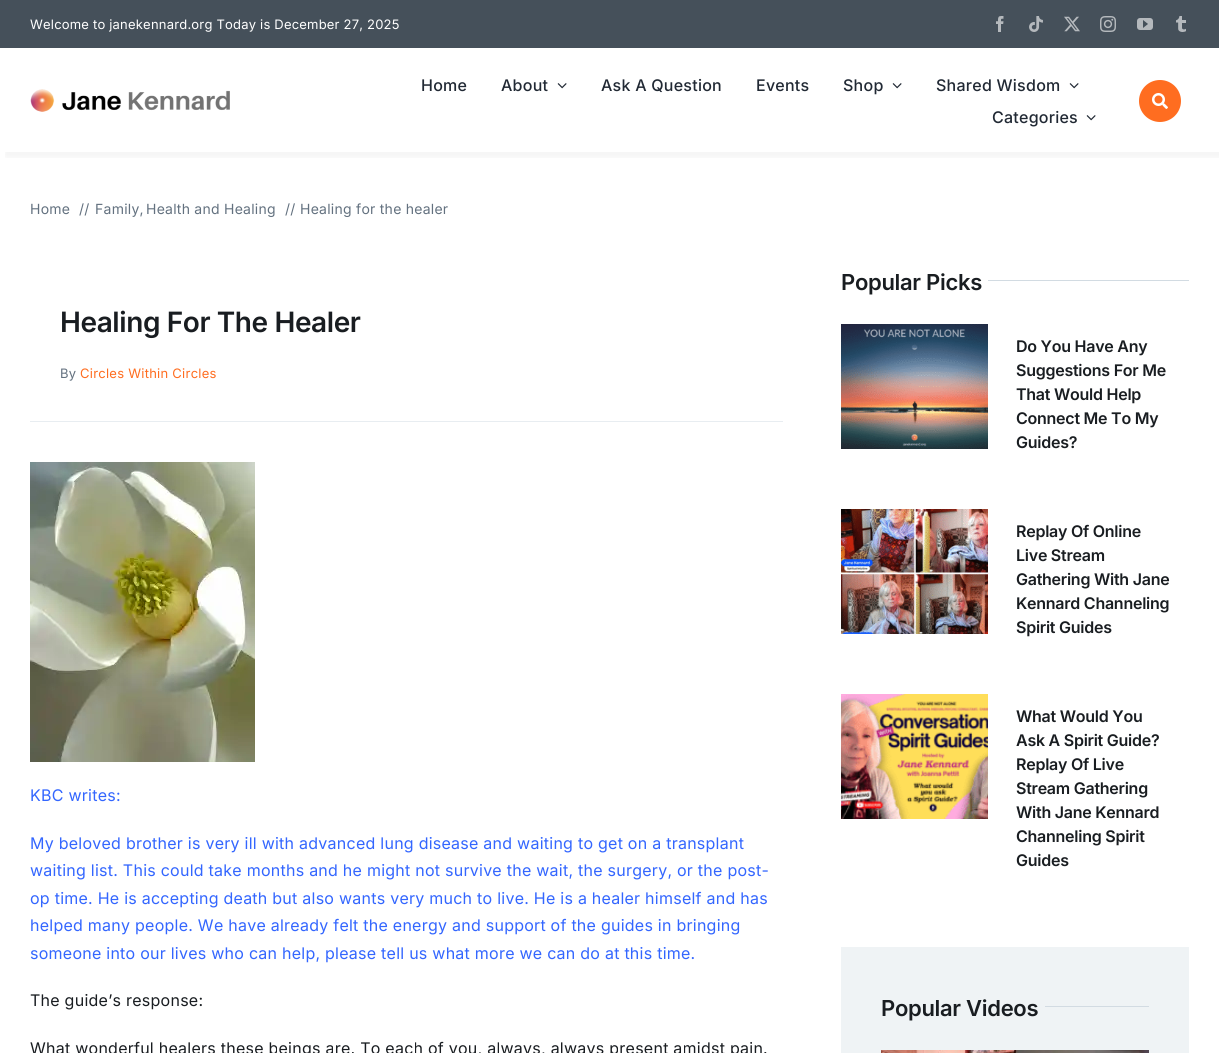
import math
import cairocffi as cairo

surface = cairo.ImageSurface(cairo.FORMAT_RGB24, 1219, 1053)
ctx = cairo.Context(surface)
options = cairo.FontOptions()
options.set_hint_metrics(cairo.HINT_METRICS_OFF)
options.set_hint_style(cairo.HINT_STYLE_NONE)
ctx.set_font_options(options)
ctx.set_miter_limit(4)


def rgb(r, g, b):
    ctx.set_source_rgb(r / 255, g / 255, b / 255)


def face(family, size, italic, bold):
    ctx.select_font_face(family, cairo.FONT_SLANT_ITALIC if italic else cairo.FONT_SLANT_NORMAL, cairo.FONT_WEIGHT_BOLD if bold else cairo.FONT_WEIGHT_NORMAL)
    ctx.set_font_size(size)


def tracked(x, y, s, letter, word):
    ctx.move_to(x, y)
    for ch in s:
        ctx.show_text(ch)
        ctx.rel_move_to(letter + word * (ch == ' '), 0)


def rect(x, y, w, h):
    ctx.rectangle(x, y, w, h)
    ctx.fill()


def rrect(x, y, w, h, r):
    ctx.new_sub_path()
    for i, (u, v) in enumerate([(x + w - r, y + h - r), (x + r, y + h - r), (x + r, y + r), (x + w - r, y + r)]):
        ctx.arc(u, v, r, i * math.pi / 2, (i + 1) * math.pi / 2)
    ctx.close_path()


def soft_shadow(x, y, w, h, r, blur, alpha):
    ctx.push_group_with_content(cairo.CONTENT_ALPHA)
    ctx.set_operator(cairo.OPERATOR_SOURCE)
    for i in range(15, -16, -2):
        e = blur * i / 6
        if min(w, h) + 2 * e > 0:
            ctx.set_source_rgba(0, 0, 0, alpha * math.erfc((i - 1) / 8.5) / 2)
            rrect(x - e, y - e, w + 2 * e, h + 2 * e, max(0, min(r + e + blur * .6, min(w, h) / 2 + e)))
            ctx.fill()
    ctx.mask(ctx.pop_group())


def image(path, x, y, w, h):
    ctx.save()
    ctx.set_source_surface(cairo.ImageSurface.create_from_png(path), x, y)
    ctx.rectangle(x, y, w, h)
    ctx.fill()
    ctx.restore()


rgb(255, 255, 255)
ctx.paint()
rgb(69, 80, 90)
rect(0, 0, 1219, 48)
face('Inter', 13, 0, 0)
rgb(255, 255, 255)
tracked(30, 29, 'Welcome to janekennard.org Today is December 27, 2025', 0.2, 0)
image('image0.png', 996, 16, 8, 16)
image('image1.png', 1029, 16, 14, 16)
image('image2.png', 1064, 16, 16, 16)
image('image3.png', 1100, 16, 16, 16)
image('image4.png', 1137, 18, 16, 12)
image('image5.png', 1176, 16, 10, 16)
ctx.save()
ctx.rectangle(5, 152, 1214, 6)
ctx.clip()
rgb(2, 3, 3)
soft_shadow(5, 53, 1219, 104, 0, 5, 0.05)
ctx.restore()
image('image6.png', 30, 89, 200, 23)
face('Inter Medium', 16, 0, 0)
rgb(33, 41, 52)
tracked(421, 91, 'Home', 0.25, 0)
tracked(501, 91, 'About', 0.25, 0)
image('image7.png', 557, 83, 10, 6)
tracked(601, 91, 'Ask A Question', 0.25, 0)
tracked(756, 91, 'Events', 0.25, 0)
tracked(843, 91, 'Shop', 0.25, 0)
image('image7.png', 892, 83, 10, 6)
tracked(936, 91, 'Shared Wisdom', 0.25, 0)
image('image7.png', 1069, 83, 10, 6)
tracked(992, 123, 'Categories', 0.25, 0)
image('image7.png', 1086, 115, 10, 6)
rgb(255, 109, 32)
ctx.arc(1160, 101, 21, 0, 2 * math.pi)
ctx.fill()
image('image8.png', 1152, 93, 16, 16)
face('Inter', 14, 0, 0)
rgb(99, 113, 127)
tracked(30, 214, 'Home', 0.25, 0)
tracked(79, 214, '//', 0.25, 0)
tracked(95, 214, 'Family,', 0.25, 0)
tracked(146, 214, 'Health and Healing', 0.25, 0)
tracked(285, 214, '//', 0.25, 0)
tracked(300, 214, 'Healing for the healer', 0.25, 0)
face('Inter SemiBold', 28, 0, 0)
rgb(25, 29, 33)
tracked(60, 332, 'Healing For The Healer', -0.4, 0)
face('Inter', 13, 0, 0)
rgb(99, 113, 127)
tracked(60, 378, 'By', 0.25, 0)
rgb(255, 109, 32)
tracked(80, 378, 'Circles Within Circles', 0.25, 0)
rgb(232, 237, 241)
rect(30, 421, 753, 1)
image('image9.png', 30, 462, 225, 300)
face('Inter', 16, 0, 0)
rgb(51, 102, 255)
tracked(30, 801, 'KBC writes:', 0.25, 0)
tracked(30, 849, 'My beloved brother is very ill with advanced lung disease and waiting to get on a transplant', 0.25, 0)
tracked(30, 876, 'waiting list. This could take months and he might not survive the wait, the surgery, or the post-', 0.25, 0)
tracked(30, 904, 'op time. He is accepting death but also wants very much to live. He is a healer himself and has', 0.25, 0)
tracked(30, 931, 'helped many people. We have already felt the energy and support of the guides in bringing', 0.25, 0)
tracked(30, 959, 'someone into our lives who can help, please tell us what more we can do at this time.', 0.25, 0)
rgb(25, 29, 33)
tracked(30, 1006, 'The guide’s response:', 0.25, 0)
tracked(30, 1054, 'What wonderful healers these beings are. To each of you, always, always present amidst pain.', 0.25, 0)
face('Inter SemiBold', 22, 0, 0)
tracked(841, 290, 'Popular Picks', -0.3, 0)
rgb(210, 219, 226)
rect(988, 280, 201, 1)
image('image10.png', 841, 324, 147, 125)
face('Inter SemiBold', 16, 0, 0)
rgb(25, 29, 33)
tracked(1016, 352, 'Do You Have Any', -0.25, 0)
tracked(1016, 376, 'Suggestions For Me', -0.25, 0)
tracked(1016, 400, 'That Would Help', -0.25, 0)
tracked(1016, 424, 'Connect Me To My', -0.25, 0)
tracked(1016, 448, 'Guides?', -0.25, 0)
image('image11.png', 841, 509, 147, 125)
tracked(1016, 537, 'Replay Of Online', -0.25, 0)
tracked(1016, 561, 'Live Stream', -0.25, 0)
tracked(1016, 585, 'Gathering With Jane', -0.25, 0)
tracked(1016, 609, 'Kennard Channeling', -0.25, 0)
tracked(1016, 633, 'Spirit Guides', -0.25, 0)
image('image12.png', 841, 694, 147, 125)
tracked(1016, 722, 'What Would You', -0.25, 0)
tracked(1016, 746, 'Ask A Spirit Guide?', -0.25, 0)
tracked(1016, 770, 'Replay Of Live', -0.25, 0)
tracked(1016, 794, 'Stream Gathering', -0.25, 0)
tracked(1016, 818, 'With Jane Kennard', -0.25, 0)
tracked(1016, 842, 'Channeling Spirit', -0.25, 0)
tracked(1016, 866, 'Guides', -0.25, 0)
rgb(239, 243, 245)
rect(841, 947, 348, 106)
face('Inter SemiBold', 22, 0, 0)
rgb(25, 29, 33)
tracked(881, 1016, 'Popular Videos', -0.3, 0)
rgb(210, 219, 226)
rect(1045, 1006, 104, 1)
image('image13.png', 881, 1050, 268, 3)
surface.write_to_png('render.png')
